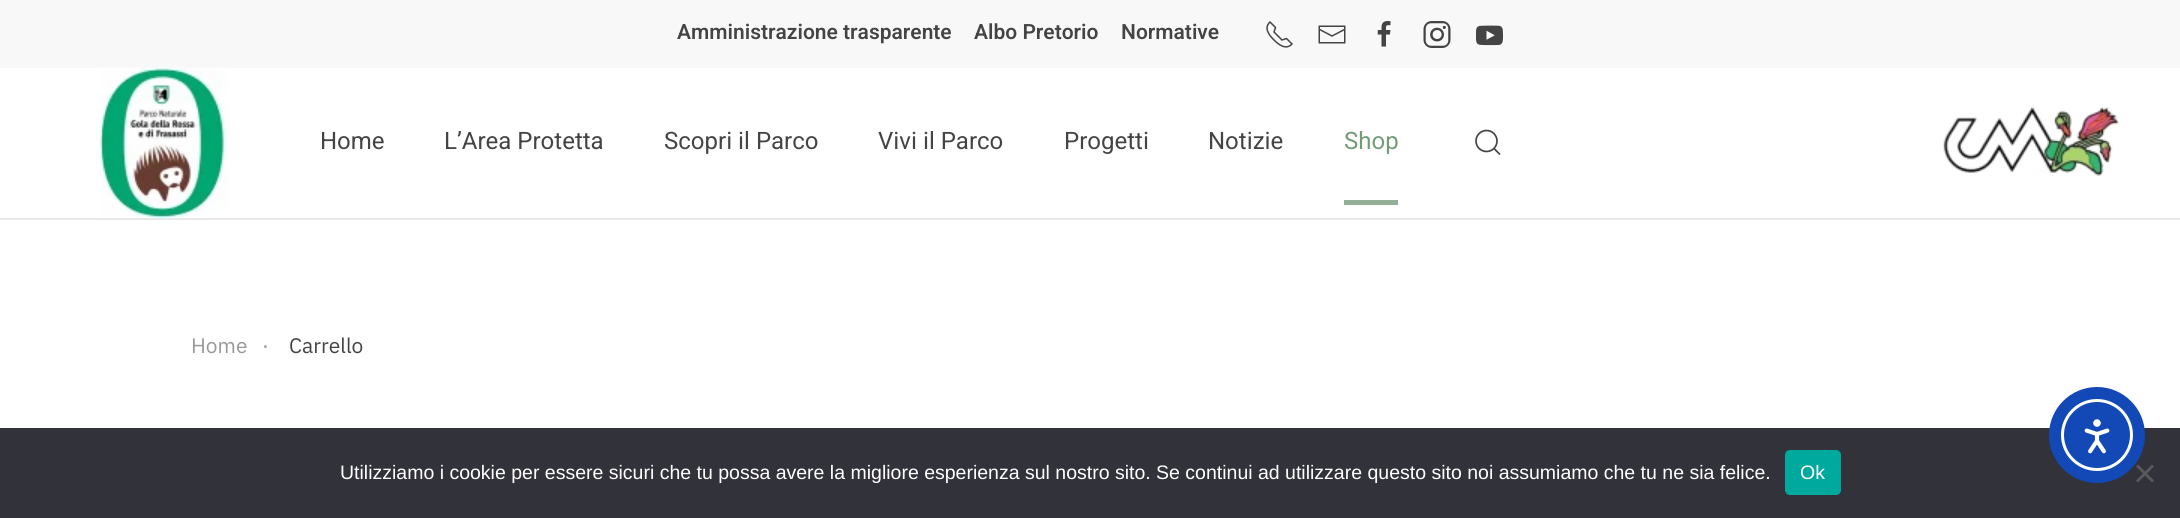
import math
import cairocffi as cairo

surface = cairo.ImageSurface(cairo.FORMAT_RGB24, 2180, 518)
ctx = cairo.Context(surface)
options = cairo.FontOptions()
options.set_hint_metrics(cairo.HINT_METRICS_OFF)
options.set_hint_style(cairo.HINT_STYLE_NONE)
ctx.set_font_options(options)
ctx.set_miter_limit(4)


def rgb(r, g, b):
    ctx.set_source_rgb(r / 255, g / 255, b / 255)


def face(family, size, italic, bold):
    ctx.select_font_face(family, cairo.FONT_SLANT_ITALIC if italic else cairo.FONT_SLANT_NORMAL, cairo.FONT_WEIGHT_BOLD if bold else cairo.FONT_WEIGHT_NORMAL)
    ctx.set_font_size(size)


def label(x, y, s):
    ctx.move_to(x, y)
    ctx.show_text(s)


def rect(x, y, w, h):
    ctx.rectangle(x, y, w, h)
    ctx.fill()


def rrect(x, y, w, h, r):
    ctx.new_sub_path()
    for i, (u, v) in enumerate([(x + w - r, y + h - r), (x + r, y + h - r), (x + r, y + r), (x + w - r, y + r)]):
        ctx.arc(u, v, r, i * math.pi / 2, (i + 1) * math.pi / 2)
    ctx.close_path()


def image(path, x, y, w, h):
    ctx.save()
    ctx.set_source_surface(cairo.ImageSurface.create_from_png(path), x, y)
    ctx.rectangle(x, y, w, h)
    ctx.fill()
    ctx.restore()


rgb(255, 255, 255)
ctx.paint()
rgb(248, 248, 248)
rect(0, 0, 2180, 68)
face('Heebo SemiBold', 21, 0, 0)
rgb(68, 68, 68)
label(677, 39, 'Amministrazione trasparente')
label(974, 39, 'Albo Pretorio')
label(1121, 39, 'Normative')
ctx.new_path()
ctx.move_to(1274, 40)
ctx.curve_to(1278.5, 44.5, 1286, 50.5, 1292, 44)
ctx.line_to(1286.5, 38.5)
ctx.line_to(1282, 40)
ctx.line_to(1274, 32)
ctx.line_to(1275.5, 27.5)
ctx.line_to(1270, 22)
ctx.curve_to(1263.5, 28, 1269, 35, 1274, 40)
ctx.set_line_width(1.5)
ctx.stroke()
image('image0.png', 1318, 25, 28, 19)
image('image1.png', 1377, 21, 14, 26)
image('image2.png', 1423, 21, 28, 27)
image('image3.png', 1476, 25, 27, 21)
rgb(232, 232, 232)
rect(0, 218, 2180, 2)
image('image4.png', 96, 67, 132, 151)
face('Heebo', 24, 0, 0)
rgb(68, 68, 68)
label(320, 149, 'Home')
label(444, 149, 'L’Area Protetta')
label(664, 149, 'Scopri il Parco')
label(878, 149, 'Vivi il Parco')
label(1064, 149, 'Progetti')
label(1208, 149, 'Notizie')
rgb(116, 155, 120)
label(1344, 149, 'Shop')
rgb(146, 176, 149)
rect(1344, 200, 54, 5)
ctx.new_path()
ctx.arc(1486.5, 141, 10.5, 0, 2 * math.pi)
rgb(68, 68, 68)
ctx.set_line_width(1.7)
ctx.stroke()
ctx.new_path()
ctx.move_to(1494, 148.5)
ctx.line_to(1500, 154.5)
ctx.close_path()
ctx.stroke()
image('image5.png', 1943, 106, 176, 70)
face('IBM Plex Sans', 21, 0, 0)
rgb(153, 153, 153)
label(191, 353, 'Home')
label(262, 353, '·')
rgb(68, 68, 68)
label(289, 353, 'Carrello')
rgb(50, 50, 58)
rect(0, 428, 2180, 90)
face('Liberation Sans', 19.5, 0, 0)
rgb(255, 255, 255)
label(340, 479, 'Utilizziamo i cookie per essere sicuri che tu possa avere la migliore esperienza sul nostro sito. Se continui ad utilizzare questo sito noi assumiamo che tu ne sia felice.')
rgb(0, 169, 157)
rrect(1785, 450, 56, 45, 5)
ctx.fill()
rgb(255, 255, 255)
label(1800, 479, 'Ok')
rgb(89, 89, 93)
ctx.new_path()
ctx.move_to(2152, 464.5)
ctx.line_to(2154, 466.5)
ctx.line_to(2138, 482.5)
ctx.line_to(2136, 480.5)
ctx.close_path()
ctx.fill()
ctx.new_path()
ctx.move_to(2136, 466.5)
ctx.line_to(2138, 464.5)
ctx.line_to(2154, 480.5)
ctx.line_to(2152, 482.5)
ctx.close_path()
ctx.fill()
rgb(18, 73, 183)
ctx.arc(2097, 435, 48, 0, 2 * math.pi)
ctx.fill()
ctx.arc(2097, 435, 34.5, 0, 2 * math.pi)
rgb(255, 255, 255)
ctx.set_line_width(3)
ctx.stroke()
image('image6.png', 2084, 419, 26, 35)
surface.write_to_png('render.png')
